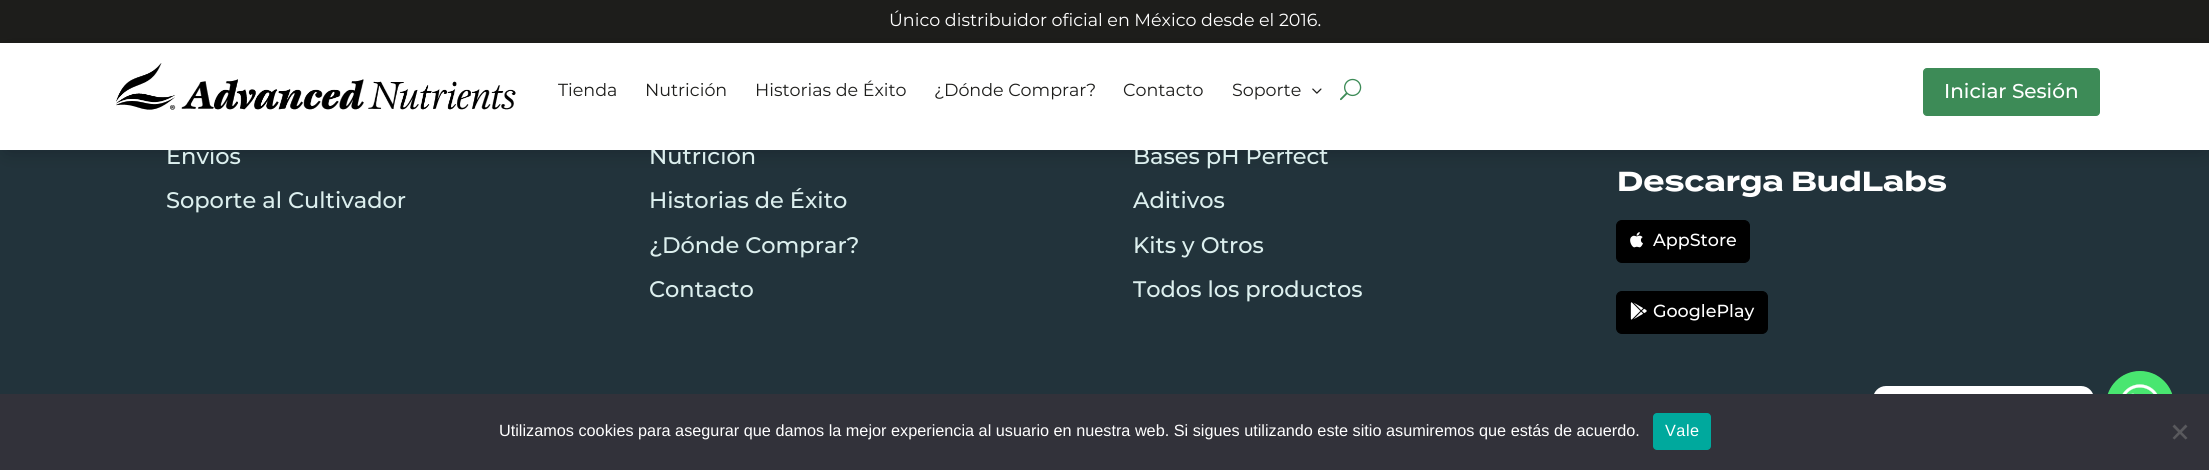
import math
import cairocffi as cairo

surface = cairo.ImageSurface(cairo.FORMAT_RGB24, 2209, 470)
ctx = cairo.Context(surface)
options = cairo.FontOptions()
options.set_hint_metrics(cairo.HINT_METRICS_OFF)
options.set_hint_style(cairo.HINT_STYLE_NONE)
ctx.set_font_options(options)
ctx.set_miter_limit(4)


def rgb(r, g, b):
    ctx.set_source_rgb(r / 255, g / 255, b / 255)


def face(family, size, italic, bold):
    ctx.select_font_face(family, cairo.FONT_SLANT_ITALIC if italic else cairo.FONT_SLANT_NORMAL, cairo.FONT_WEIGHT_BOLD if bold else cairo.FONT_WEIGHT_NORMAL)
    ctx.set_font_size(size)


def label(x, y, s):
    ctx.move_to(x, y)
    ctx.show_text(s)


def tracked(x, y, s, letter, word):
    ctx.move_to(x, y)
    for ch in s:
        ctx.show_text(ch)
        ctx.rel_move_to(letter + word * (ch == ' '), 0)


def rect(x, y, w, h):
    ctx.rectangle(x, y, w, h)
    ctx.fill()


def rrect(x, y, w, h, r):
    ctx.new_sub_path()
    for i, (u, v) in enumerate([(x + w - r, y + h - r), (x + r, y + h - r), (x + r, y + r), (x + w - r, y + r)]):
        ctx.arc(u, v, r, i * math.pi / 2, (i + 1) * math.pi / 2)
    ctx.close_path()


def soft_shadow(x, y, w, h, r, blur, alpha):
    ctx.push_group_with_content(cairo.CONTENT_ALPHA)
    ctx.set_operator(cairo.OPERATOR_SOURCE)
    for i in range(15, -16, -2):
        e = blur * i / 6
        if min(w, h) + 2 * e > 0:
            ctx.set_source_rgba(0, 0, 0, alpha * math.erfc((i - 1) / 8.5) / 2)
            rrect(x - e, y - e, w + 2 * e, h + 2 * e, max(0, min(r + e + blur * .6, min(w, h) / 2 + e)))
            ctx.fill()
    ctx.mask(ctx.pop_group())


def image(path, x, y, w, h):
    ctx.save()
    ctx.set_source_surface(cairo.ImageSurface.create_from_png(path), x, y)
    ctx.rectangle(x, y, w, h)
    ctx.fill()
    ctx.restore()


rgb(34, 51, 59)
ctx.paint()
rgb(29, 29, 27)
rect(0, 0, 2209, 43)
face('Montserrat', 17.5, 0, 0)
rgb(255, 255, 255)
label(889, 26, 'Único distribuidor oficial en México desde el 2016.')
rgb(0, 0, 0)
soft_shadow(8, 55, 2195, 93, 0, 11, 0.3)
face('Montserrat Medium', 22.5, 0, 0)
rgb(220, 239, 238)
label(166, 164, 'Envíos')
label(649, 164, 'Nutrición')
label(1133, 164, 'Bases pH Perfect')
rgb(255, 255, 255)
rect(0, 43, 2209, 107)
image('image0.png', 116, 63, 400, 47)
face('Montserrat', 17.5, 0, 0)
rgb(29, 29, 27)
label(558, 96, 'Tienda')
label(645, 96, 'Nutrición')
label(755, 96, 'Historias de Éxito')
label(934, 96, '¿Dónde Comprar?')
label(1123, 96, 'Contacto')
label(1232, 96, 'Soporte')
image('image1.png', 1312, 88, 10, 6)
image('image2.png', 1340, 78, 22, 23)
rgb(61, 139, 87)
rrect(1923.5, 68.5, 176, 47, 3.5)
ctx.fill_preserve()
ctx.set_line_width(1)
ctx.stroke()
face('Montserrat Medium', 20, 0, 0)
rgb(255, 255, 255)
label(1944, 98, 'Iniciar Sesión')
face('Montserrat Medium', 22.5, 0, 0)
rgb(220, 239, 238)
label(166, 208, 'Soporte al Cultivador')
label(649, 208, 'Historias de Éxito')
label(649, 253, '¿Dónde Comprar?')
label(649, 297, 'Contacto')
label(1133, 208, 'Aditivos')
label(1133, 253, 'Kits y Otros')
label(1133, 297, 'Todos los productos')
face('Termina', 27.5, 0, 1)
rgb(255, 255, 255)
label(1617, 191, 'Descarga BudLabs')
rgb(0, 0, 0)
rrect(1616.5, 220.5, 133, 42, 5.5)
ctx.fill_preserve()
ctx.stroke()
image('image3.png', 1630, 232, 13, 16)
face('Montserrat Medium', 17.5, 0, 0)
rgb(255, 255, 255)
label(1653, 246, 'AppStore')
rgb(0, 0, 0)
rrect(1616.5, 291.5, 151, 42, 5.5)
ctx.fill_preserve()
ctx.stroke()
image('image4.png', 1630, 302, 17, 18)
rgb(255, 255, 255)
label(1653, 317, 'GooglePlay')
rrect(1873, 386, 221, 39, 13)
ctx.fill()
rgb(73, 230, 112)
ctx.arc(2140, 405, 34, 0, 2 * math.pi)
ctx.fill()
rgb(50, 50, 58)
rect(0, 394, 2209, 76)
face('Liberation Sans', 16.25, 0, 0)
rgb(255, 255, 255)
label(499, 436, 'Utilizamos cookies para asegurar que damos la mejor experiencia al usuario en nuestra web. Si sigues utilizando este sitio asumiremos que estás de acuerdo.')
rgb(0, 169, 157)
rrect(1653, 413, 58, 37, 4)
ctx.fill()
rgb(255, 255, 255)
tracked(1665, 436, 'Vale', 0.5, 0)
rgb(89, 89, 93)
ctx.new_path()
ctx.move_to(2185.5, 424.5)
ctx.line_to(2187.5, 426.5)
ctx.line_to(2174.5, 439.5)
ctx.line_to(2172.5, 438)
ctx.close_path()
ctx.fill()
ctx.new_path()
ctx.move_to(2172.5, 426.5)
ctx.line_to(2174.5, 424.5)
ctx.line_to(2187.5, 438)
ctx.line_to(2185.5, 439.5)
ctx.close_path()
ctx.fill()
image('image5.png', 2108, 371, 64, 23)
surface.write_to_png('render.png')
